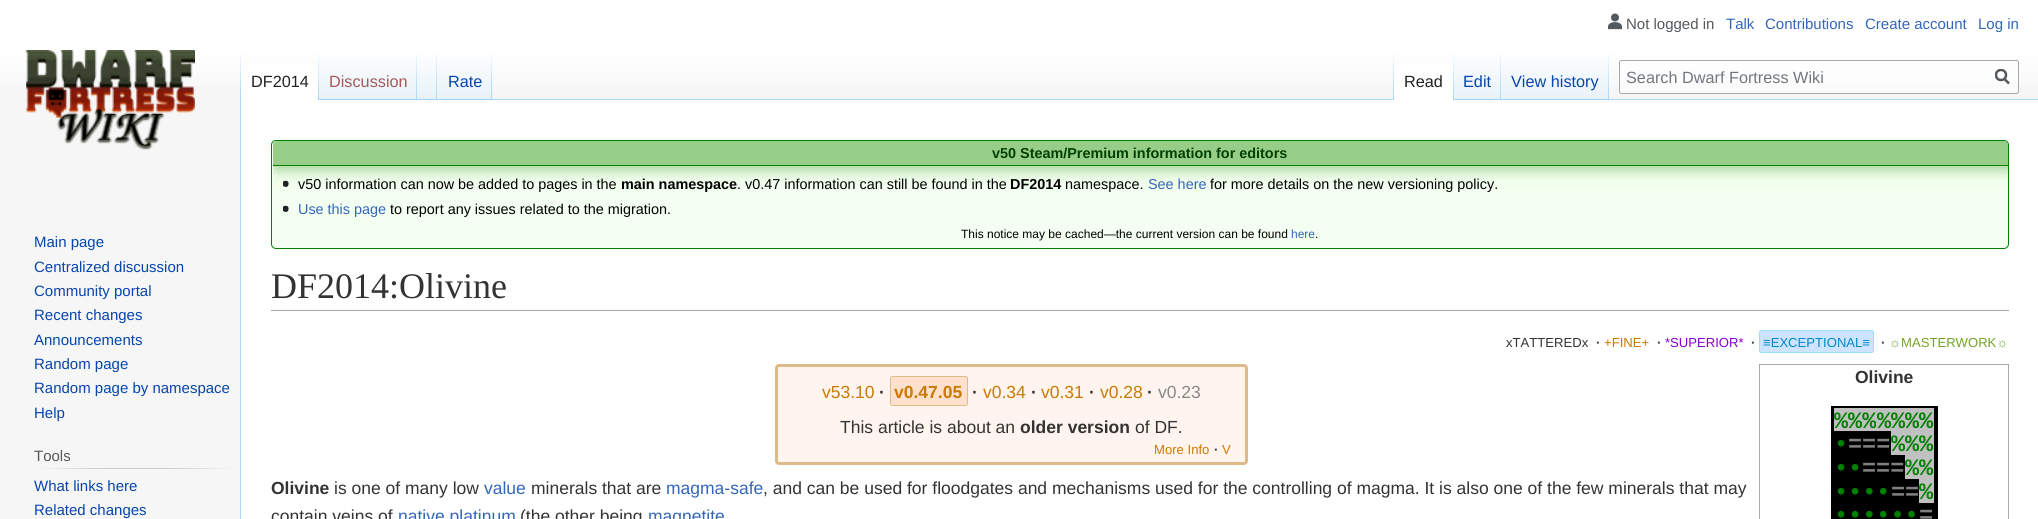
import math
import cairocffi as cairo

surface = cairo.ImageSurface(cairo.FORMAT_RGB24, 2038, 519)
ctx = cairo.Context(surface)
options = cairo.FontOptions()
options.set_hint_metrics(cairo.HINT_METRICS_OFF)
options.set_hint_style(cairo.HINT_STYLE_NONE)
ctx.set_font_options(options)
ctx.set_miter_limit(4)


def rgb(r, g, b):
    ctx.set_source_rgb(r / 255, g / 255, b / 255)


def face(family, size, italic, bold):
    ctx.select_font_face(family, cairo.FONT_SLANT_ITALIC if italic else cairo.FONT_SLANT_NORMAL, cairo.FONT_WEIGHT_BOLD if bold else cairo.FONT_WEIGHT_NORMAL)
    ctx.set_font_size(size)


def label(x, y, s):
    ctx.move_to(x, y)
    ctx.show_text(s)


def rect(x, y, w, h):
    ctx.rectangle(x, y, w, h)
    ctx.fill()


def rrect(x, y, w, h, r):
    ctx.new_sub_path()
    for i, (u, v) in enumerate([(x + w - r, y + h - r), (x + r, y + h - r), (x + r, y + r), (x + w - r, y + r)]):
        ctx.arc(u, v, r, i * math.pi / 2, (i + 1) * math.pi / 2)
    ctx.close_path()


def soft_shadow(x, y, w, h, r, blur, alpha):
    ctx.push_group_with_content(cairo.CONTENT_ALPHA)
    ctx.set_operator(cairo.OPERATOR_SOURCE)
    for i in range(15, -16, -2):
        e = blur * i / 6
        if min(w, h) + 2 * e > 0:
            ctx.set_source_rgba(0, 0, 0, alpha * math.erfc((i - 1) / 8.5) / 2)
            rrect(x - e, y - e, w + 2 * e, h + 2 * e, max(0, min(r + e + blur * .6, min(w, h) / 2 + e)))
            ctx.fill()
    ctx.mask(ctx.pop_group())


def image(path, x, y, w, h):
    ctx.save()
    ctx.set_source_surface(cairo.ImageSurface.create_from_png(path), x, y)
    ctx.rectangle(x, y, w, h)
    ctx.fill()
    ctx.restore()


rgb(246, 246, 246)
ctx.paint()
gradient = cairo.LinearGradient(1019, 0, 1019, 100)
gradient.add_color_stop_rgba(0.5, 1, 1, 1, 1)
gradient.add_color_stop_rgba(1, 0.965, 0.965, 0.965, 1)
ctx.set_source(gradient)
rect(0, 0, 2038, 86)
image('image0.png', 1608, 13, 14, 17)
face('Liberation Sans', 15, 0, 0)
rgb(84, 89, 93)
label(1626, 29, 'Not logged in')
rgb(51, 102, 187)
label(1726, 29, 'Talk')
label(1765, 29, 'Contributions')
label(1865, 29, 'Create account')
label(1978, 29, 'Log in')
rgb(167, 215, 249)
rect(240, 99, 1, 420)
gradient = cairo.LinearGradient(241, 50, 241, 100)
gradient.add_color_stop_rgba(0, 0.655, 0.843, 0.976, 0)
gradient.add_color_stop_rgba(1, 0.655, 0.843, 0.976, 1)
ctx.set_source(gradient)
rect(240, 50, 1, 50)
rgb(255, 255, 255)
rect(241, 64, 77, 36)
gradient = cairo.LinearGradient(318, 50, 318, 100)
gradient.add_color_stop_rgba(0, 1, 1, 1, 1)
gradient.add_color_stop_rgba(1, 0.655, 0.843, 0.976, 1)
ctx.set_source(gradient)
rect(318, 50, 1, 50)
face('Liberation Sans', 16.25, 0, 0)
rgb(32, 33, 34)
label(251, 87, 'DF2014')
gradient = cairo.LinearGradient(368, 100, 368, 50)
gradient.add_color_stop_rgba(0, 0.467, 0.757, 0.965, 1)
gradient.add_color_stop_rgba(0.03, 0.91, 0.949, 0.973, 1)
gradient.add_color_stop_rgba(1, 1, 1, 1, 1)
ctx.set_source(gradient)
rect(319, 57, 99, 43)
gradient = cairo.LinearGradient(417, 50, 417, 100)
gradient.add_color_stop_rgba(0, 0.655, 0.843, 0.976, 0)
gradient.add_color_stop_rgba(1, 0.655, 0.843, 0.976, 1)
ctx.set_source(gradient)
rect(416, 50, 1, 50)
rgb(165, 88, 88)
label(329, 87, 'Discussion')
gradient = cairo.LinearGradient(428, 100, 428, 50)
gradient.add_color_stop_rgba(0, 0.467, 0.757, 0.965, 1)
gradient.add_color_stop_rgba(0.03, 0.91, 0.949, 0.973, 1)
gradient.add_color_stop_rgba(1, 1, 1, 1, 1)
ctx.set_source(gradient)
rect(418, 57, 20, 43)
gradient = cairo.LinearGradient(437, 50, 437, 100)
gradient.add_color_stop_rgba(0, 0.655, 0.843, 0.976, 0)
gradient.add_color_stop_rgba(1, 0.655, 0.843, 0.976, 1)
ctx.set_source(gradient)
rect(436, 50, 1, 50)
gradient = cairo.LinearGradient(465, 100, 465, 50)
gradient.add_color_stop_rgba(0, 0.467, 0.757, 0.965, 1)
gradient.add_color_stop_rgba(0.03, 0.91, 0.949, 0.973, 1)
gradient.add_color_stop_rgba(1, 1, 1, 1, 1)
ctx.set_source(gradient)
rect(438, 57, 55, 43)
gradient = cairo.LinearGradient(492, 50, 492, 100)
gradient.add_color_stop_rgba(0, 0.655, 0.843, 0.976, 0)
gradient.add_color_stop_rgba(1, 0.655, 0.843, 0.976, 1)
ctx.set_source(gradient)
rect(491, 50, 1, 50)
rgb(6, 69, 173)
label(448, 87, 'Rate')
rgb(167, 215, 249)
rect(493, 99, 1545, 1)
gradient = cairo.LinearGradient(1393, 50, 1393, 100)
gradient.add_color_stop_rgba(0, 0.655, 0.843, 0.976, 0)
gradient.add_color_stop_rgba(1, 0.655, 0.843, 0.976, 1)
ctx.set_source(gradient)
rect(1393, 50, 1, 50)
rgb(255, 255, 255)
rect(1394, 64, 59, 36)
gradient = cairo.LinearGradient(1453, 50, 1453, 100)
gradient.add_color_stop_rgba(0, 1, 1, 1, 1)
gradient.add_color_stop_rgba(1, 0.655, 0.843, 0.976, 1)
ctx.set_source(gradient)
rect(1453, 50, 1, 50)
rgb(32, 33, 34)
label(1404, 87, 'Read')
gradient = cairo.LinearGradient(1478, 100, 1478, 50)
gradient.add_color_stop_rgba(0, 0.467, 0.757, 0.965, 1)
gradient.add_color_stop_rgba(0.03, 0.91, 0.949, 0.973, 1)
gradient.add_color_stop_rgba(1, 1, 1, 1, 1)
ctx.set_source(gradient)
rect(1454, 57, 47, 43)
gradient = cairo.LinearGradient(1501, 50, 1501, 100)
gradient.add_color_stop_rgba(0, 0.655, 0.843, 0.976, 0)
gradient.add_color_stop_rgba(1, 0.655, 0.843, 0.976, 1)
ctx.set_source(gradient)
rect(1500, 50, 1, 50)
rgb(6, 69, 173)
label(1463, 87, 'Edit')
gradient = cairo.LinearGradient(1555, 100, 1555, 50)
gradient.add_color_stop_rgba(0, 0.467, 0.757, 0.965, 1)
gradient.add_color_stop_rgba(0.03, 0.91, 0.949, 0.973, 1)
gradient.add_color_stop_rgba(1, 1, 1, 1, 1)
ctx.set_source(gradient)
rect(1501, 57, 108, 43)
gradient = cairo.LinearGradient(1608, 50, 1608, 100)
gradient.add_color_stop_rgba(0, 0.655, 0.843, 0.976, 0)
gradient.add_color_stop_rgba(1, 0.655, 0.843, 0.976, 1)
ctx.set_source(gradient)
rect(1608, 50, 1, 50)
rgb(6, 69, 173)
label(1511, 87, 'View history')
ctx.set_source_rgba(1, 1, 1, 0.5)
rrect(1619.5, 60.5, 399, 33, 2)
ctx.fill_preserve()
rgb(162, 169, 177)
ctx.set_line_width(1)
ctx.stroke()
rgb(114, 119, 125)
label(1626, 83, 'Search Dwarf Fortress Wiki')
ctx.new_path()
ctx.move_to(2009, 83.5)
ctx.line_to(2004, 78.5)
rgb(84, 89, 93)
ctx.set_line_width(2.5)
ctx.stroke()
ctx.save()
ctx.rectangle(1995, 69, 15, 16)
ctx.clip()
ctx.arc(2001, 75, 5, 0, 2 * math.pi)
ctx.stroke()
ctx.restore()
image('image1.png', 26, 50, 169, 100)
face('Liberation Sans', 15, 0, 0)
rgb(6, 69, 173)
label(34, 247, 'Main page')
label(34, 272, 'Centralized discussion')
label(34, 296, 'Community portal')
label(34, 320, 'Recent changes')
label(34, 345, 'Announcements')
label(34, 369, 'Random page')
label(34, 393, 'Random page by namespace')
label(34, 418, 'Help')
gradient = cairo.LinearGradient(34, 468, 238, 468)
gradient.add_color_stop_rgba(0, 0.965, 0.965, 0.965, 1)
gradient.add_color_stop_rgba(0.33, 0.784, 0.8, 0.82, 1)
gradient.add_color_stop_rgba(0.66, 0.784, 0.8, 0.82, 1)
gradient.add_color_stop_rgba(1, 0.965, 0.965, 0.965, 1)
ctx.set_source(gradient)
rect(34, 468, 204, 1)
rgb(84, 89, 93)
label(34, 461, 'Tools')
rgb(6, 69, 173)
label(34, 491, 'What links here')
label(34, 515, 'Related changes')
rgb(255, 255, 255)
rect(241, 100, 1797, 419)
rgb(243, 255, 240)
rrect(271.5, 140.5, 1737, 108, 4.5)
ctx.fill_preserve()
rgb(0, 128, 0)
ctx.set_line_width(1)
ctx.stroke()
ctx.save()
rrect(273, 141, 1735, 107, 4)
ctx.clip()
rgb(151, 206, 135)
soft_shadow(275, 144, 1735, 25, 0, 7.5, 1)
ctx.restore()
rgb(151, 206, 135)
ctx.new_path()
ctx.move_to(277, 141)
ctx.line_to(2004, 141)
ctx.curve_to(2006, 141, 2008, 143, 2008, 145)
ctx.line_to(2008, 166)
ctx.line_to(273, 166)
ctx.line_to(273, 145)
ctx.curve_to(273, 143, 275, 141, 277, 141)
ctx.close_path()
ctx.fill()
rgb(0, 128, 0)
rect(273, 165, 1735, 1)
face('Liberation Sans', 14.4, 0, 1)
rgb(0, 64, 0)
label(992, 158, 'v50 Steam/Premium information for editors')
image('image2.png', 283, 180, 6, 7)
face('Liberation Sans', 14.4, 0, 0)
rgb(0, 0, 0)
label(298, 189, 'v50 information can now be added to pages in the')
face('Liberation Sans', 14.4, 0, 1)
label(621, 189, 'main namespace')
face('Liberation Sans', 14.4, 0, 0)
label(737, 189, '. v0.47 information can still be found in the')
face('Liberation Sans', 14.4, 0, 1)
label(1010, 189, 'DF2014')
face('Liberation Sans', 14.4, 0, 0)
label(1065, 189, 'namespace.')
rgb(51, 102, 187)
label(1148, 189, 'See here')
rgb(0, 0, 0)
label(1210, 189, 'for more details on the new versioning policy.')
image('image3.png', 283, 205, 6, 7)
rgb(51, 102, 187)
label(298, 214, 'Use this page')
rgb(0, 0, 0)
label(390, 214, 'to report any issues related to the migration.')
face('Liberation Sans', 12, 0, 0)
label(961, 238, 'This notice may be cached—the current version can be found')
rgb(51, 102, 187)
label(1291, 238, 'here')
rgb(0, 0, 0)
label(1315, 238, '.')
rgb(162, 169, 177)
rect(271, 310, 1738, 1)
face('Liberation Serif', 36, 0, 0)
rgb(51, 51, 51)
label(271, 298, 'DF2014:Olivine')
face('Liberation Sans', 13.1, 0, 0)
label(1506, 347, 'xTATTEREDx')
face('Liberation Sans', 13.1, 0, 1)
label(1596, 347, '·')
face('Liberation Sans', 13.1, 0, 0)
rgb(202, 122, 2)
label(1604, 347, '+FINE+')
face('Liberation Sans', 13.1, 0, 1)
rgb(51, 51, 51)
label(1657, 347, '·')
face('Liberation Sans', 13.1, 0, 0)
rgb(136, 0, 204)
label(1665, 347, '*SUPERIOR*')
face('Liberation Sans', 13.1, 0, 1)
rgb(51, 51, 51)
label(1751, 347, '·')
rgb(204, 228, 255)
rrect(1759.5, 330.5, 114, 22, 2)
ctx.fill_preserve()
rgb(153, 221, 255)
ctx.stroke()
face('Liberation Sans', 13.1, 0, 0)
rgb(0, 136, 204)
label(1763, 347, '≡EXCEPTIONAL≡')
face('Liberation Sans', 13.1, 0, 1)
rgb(51, 51, 51)
label(1881, 347, '·')
face('Liberation Sans', 13.1, 0, 0)
rgb(114, 163, 41)
label(1889, 347, '☼MASTERWORK☼')
rgb(255, 245, 238)
rrect(776.5, 365.5, 470, 98, 2.5)
ctx.fill_preserve()
rgb(221, 187, 136)
ctx.set_line_width(3)
ctx.stroke()
face('Liberation Sans', 17.5, 0, 0)
rgb(202, 122, 2)
label(822, 398, 'v53.10')
face('Liberation Sans', 17.5, 0, 1)
rgb(51, 51, 51)
label(879, 398, '·')
rgb(255, 224, 204)
rrect(890.5, 376.5, 77, 29, 2)
ctx.fill_preserve()
rgb(221, 187, 136)
ctx.set_line_width(1)
ctx.stroke()
rgb(202, 122, 2)
label(894, 398, 'v0.47.05')
rgb(51, 51, 51)
label(972, 398, '·')
face('Liberation Sans', 17.5, 0, 0)
rgb(202, 122, 2)
label(983, 398, 'v0.34')
face('Liberation Sans', 17.5, 0, 1)
rgb(51, 51, 51)
label(1031, 398, '·')
face('Liberation Sans', 17.5, 0, 0)
rgb(202, 122, 2)
label(1041, 398, 'v0.31')
face('Liberation Sans', 17.5, 0, 1)
rgb(51, 51, 51)
label(1089, 398, '·')
face('Liberation Sans', 17.5, 0, 0)
rgb(202, 122, 2)
label(1100, 398, 'v0.28')
face('Liberation Sans', 17.5, 0, 1)
rgb(51, 51, 51)
label(1147, 398, '·')
face('Liberation Sans', 17.5, 0, 0)
rgb(136, 136, 136)
label(1158, 398, 'v0.23')
rgb(51, 51, 51)
label(840, 433, 'This article is about an')
face('Liberation Sans', 17.5, 0, 1)
label(1020, 433, 'older version')
face('Liberation Sans', 17.5, 0, 0)
label(1135, 433, 'of DF.')
face('Liberation Sans', 13.1, 0, 0)
rgb(202, 122, 2)
label(1154, 454, 'More Info')
face('Liberation Sans', 13.1, 0, 1)
rgb(51, 51, 51)
label(1214, 454, '·')
face('Liberation Sans', 13.1, 0, 0)
rgb(202, 122, 2)
label(1222, 454, 'V')
ctx.rectangle(1759.5, 364.5, 249, 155)
rgb(170, 170, 170)
ctx.stroke()
face('Liberation Sans', 17.5, 0, 1)
rgb(51, 51, 51)
label(1855, 383, 'Olivine')
rgb(0, 0, 0)
rect(1831, 406, 107, 113)
rgb(192, 192, 192)
rect(1834, 408, 42, 23)
face('Liberation Mono', 23.5, 0, 1)
rgb(0, 128, 0)
label(1834, 428, '%%%')
rgb(192, 192, 192)
rect(1876, 408, 29, 23)
rgb(0, 128, 0)
label(1877, 428, '%%')
rgb(192, 192, 192)
rect(1905, 408, 14, 23)
rgb(0, 128, 0)
label(1905, 428, '%')
rgb(192, 192, 192)
rect(1919, 408, 15, 23)
rgb(0, 128, 0)
label(1919, 428, '%')
label(1834, 451, '•')
rgb(128, 128, 128)
label(1848, 451, '===')
rgb(192, 192, 192)
rect(1891, 431, 14, 24)
rgb(0, 128, 0)
label(1891, 451, '%')
rgb(192, 192, 192)
rect(1905, 431, 14, 48)
rgb(0, 128, 0)
label(1905, 451, '%')
rgb(192, 192, 192)
rect(1919, 431, 15, 24)
rgb(0, 128, 0)
label(1919, 451, '%')
label(1834, 475, '••')
rgb(128, 128, 128)
label(1862, 475, '===')
rgb(0, 128, 0)
label(1905, 475, '%')
rgb(192, 192, 192)
rect(1919, 455, 15, 48)
rgb(0, 128, 0)
label(1919, 475, '%')
label(1834, 499, '••••')
rgb(128, 128, 128)
label(1891, 499, '==')
rgb(0, 128, 0)
label(1919, 499, '%')
label(1834, 522, '••••••')
rgb(128, 128, 128)
label(1919, 522, '=')
face('Liberation Sans', 17.5, 0, 1)
rgb(51, 51, 51)
label(271, 494, 'Olivine')
face('Liberation Sans', 17.5, 0, 0)
label(334, 494, 'is one of many low')
rgb(51, 102, 187)
label(484, 494, 'value')
rgb(51, 51, 51)
label(531, 494, 'minerals that are')
rgb(51, 102, 187)
label(666, 494, 'magma-safe')
rgb(51, 51, 51)
label(763, 494, ', and can be used for floodgates and mechanisms used for the controlling of magma. It is also one of the few minerals that may')
label(271, 522, 'contain veins of')
rgb(51, 102, 187)
label(398, 522, 'native platinum')
rgb(51, 51, 51)
label(520, 522, '(the other being')
rgb(51, 102, 187)
label(648, 522, 'magnetite')
surface.write_to_png('render.png')
